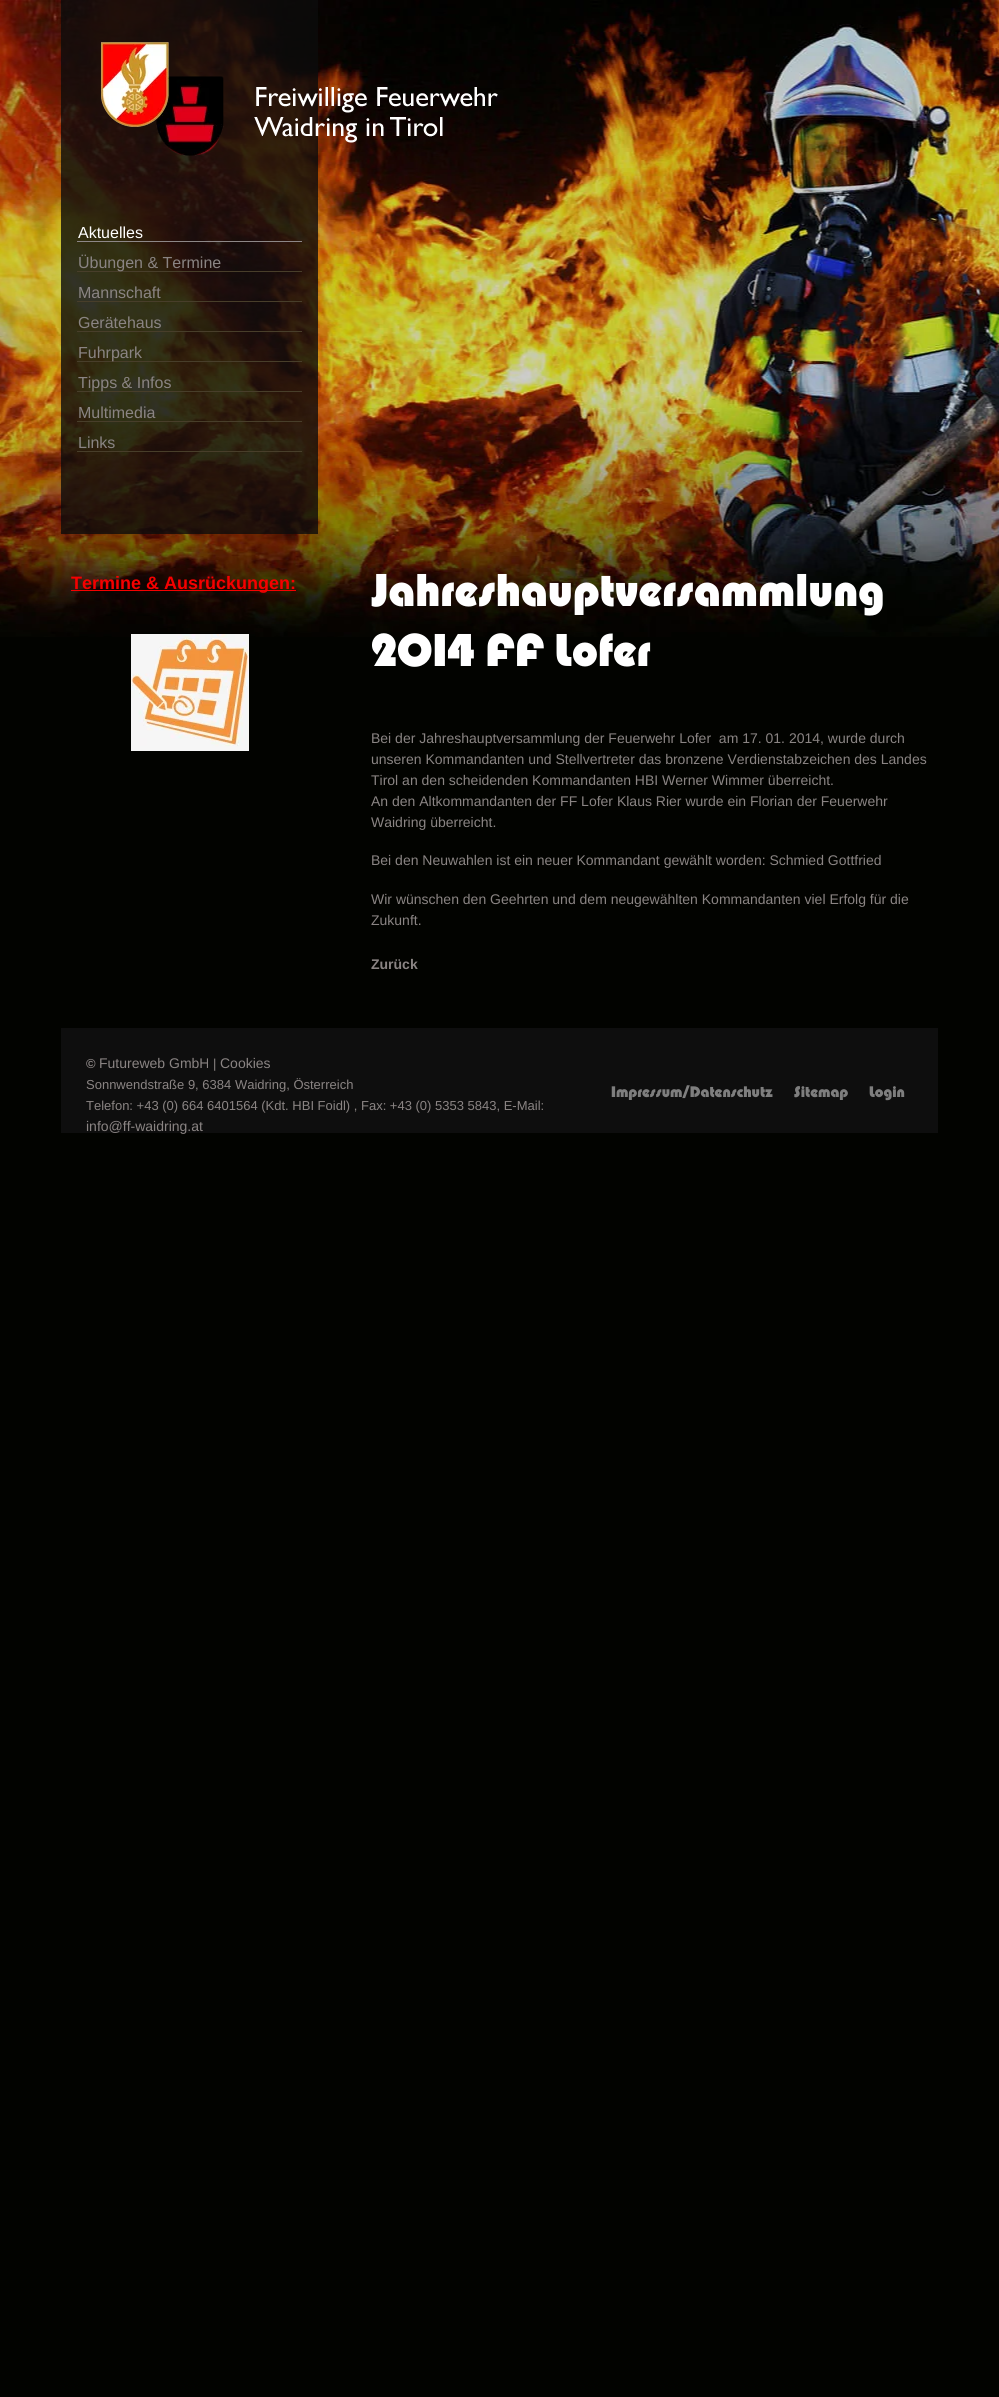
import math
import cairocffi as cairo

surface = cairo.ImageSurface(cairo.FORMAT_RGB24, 999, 2397)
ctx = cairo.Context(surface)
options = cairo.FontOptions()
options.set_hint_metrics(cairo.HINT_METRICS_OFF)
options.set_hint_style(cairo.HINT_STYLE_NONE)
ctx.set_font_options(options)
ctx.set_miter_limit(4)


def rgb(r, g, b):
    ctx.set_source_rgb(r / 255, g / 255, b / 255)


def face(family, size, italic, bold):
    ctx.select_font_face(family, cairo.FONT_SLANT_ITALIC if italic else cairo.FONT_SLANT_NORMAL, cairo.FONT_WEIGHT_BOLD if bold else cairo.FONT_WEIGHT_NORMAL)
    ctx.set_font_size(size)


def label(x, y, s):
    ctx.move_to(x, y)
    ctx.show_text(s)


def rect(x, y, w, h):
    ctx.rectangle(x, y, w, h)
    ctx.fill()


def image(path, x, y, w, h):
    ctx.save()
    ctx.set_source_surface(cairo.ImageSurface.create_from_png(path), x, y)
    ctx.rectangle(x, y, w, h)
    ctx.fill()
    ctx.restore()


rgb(2, 3, 0)
ctx.paint()
image('image0.png', 0, 0, 999, 637)
ctx.set_source_rgba(0.047, 0.047, 0.047, 0.8)
rect(61, 0, 257, 534)
image('image1.png', 101, 42, 397, 114)
rgb(141, 135, 135)
rect(77, 241, 225, 1)
face('Liberation Sans', 16, 0, 0)
rgb(255, 255, 255)
label(78, 238, 'Aktuelles')
rgb(72, 62, 42)
rect(77, 271, 225, 1)
rgb(138, 132, 131)
label(78, 268, 'Übungen & Termine')
rgb(72, 62, 42)
rect(77, 301, 225, 1)
rgb(138, 132, 131)
label(78, 298, 'Mannschaft')
rgb(72, 62, 42)
rect(77, 331, 225, 1)
rgb(138, 132, 131)
label(78, 328, 'Gerätehaus')
rgb(72, 62, 42)
rect(77, 361, 225, 1)
rgb(138, 132, 131)
label(78, 358, 'Fuhrpark')
rgb(72, 62, 42)
rect(77, 391, 225, 1)
rgb(138, 132, 131)
label(78, 388, 'Tipps & Infos')
rgb(72, 62, 42)
rect(77, 421, 225, 1)
rgb(138, 132, 131)
label(78, 418, 'Multimedia')
rgb(72, 62, 42)
rect(77, 451, 225, 1)
rgb(138, 132, 131)
label(78, 448, 'Links')
rgb(246, 0, 0)
rect(71, 590, 225, 1)
face('Liberation Sans', 18, 0, 1)
label(71, 589, 'Termine & Ausrückungen:')
image('image2.png', 131, 634, 118, 117)
face('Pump', 48, 0, 0)
rgb(255, 255, 255)
label(371, 606, 'Jahreshauptversammlung')
label(371, 666, '2014 FF Lofer')
face('Liberation Sans', 14, 0, 0)
rgb(138, 132, 131)
label(371, 743, 'Bei der Jahreshauptversammlung der Feuerwehr Lofer  am 17. 01. 2014, wurde durch')
label(371, 764, 'unseren Kommandanten und Stellvertreter das bronzene Verdienstabzeichen des Landes')
label(371, 785, 'Tirol an den scheidenden Kommandanten HBI Werner Wimmer überreicht.')
label(371, 806, 'An den Altkommandanten der FF Lofer Klaus Rier wurde ein Florian der Feuerwehr')
label(371, 827, 'Waidring überreicht.')
label(371, 865, 'Bei den Neuwahlen ist ein neuer Kommandant gewählt worden: Schmied Gottfried')
label(371, 904, 'Wir wünschen den Geehrten und dem neugewählten Kommandanten viel Erfolg für die')
label(371, 925, 'Zukunft.')
face('Liberation Sans', 14, 0, 1)
label(371, 969, 'Zurück')
rgb(14, 14, 14)
rect(61, 1028, 877, 105)
face('Liberation Sans', 13, 0, 1)
rgb(138, 132, 131)
label(86, 1068, '©')
face('Liberation Sans', 14, 0, 0)
label(99, 1068, 'Futureweb GmbH')
face('Liberation Sans', 13, 0, 0)
label(213, 1068, '|')
face('Liberation Sans', 14, 0, 0)
label(220, 1068, 'Cookies')
face('Liberation Sans', 13, 0, 0)
label(86, 1089, 'Sonnwendstraße 9, 6384 Waidring, Österreich')
label(86, 1110, 'Telefon: +43 (0) 664 6401564 (Kdt. HBI Foidl) , Fax: +43 (0) 5353 5843, E-Mail:')
face('Liberation Sans', 14, 0, 0)
label(86, 1131, 'info@ff-waidring.at')
face('Pump', 16, 0, 0)
rgb(126, 126, 126)
label(611, 1097, 'Impressum/Datenschutz')
label(794, 1097, 'Sitemap')
label(869, 1097, 'Login')
surface.write_to_png('render.png')
